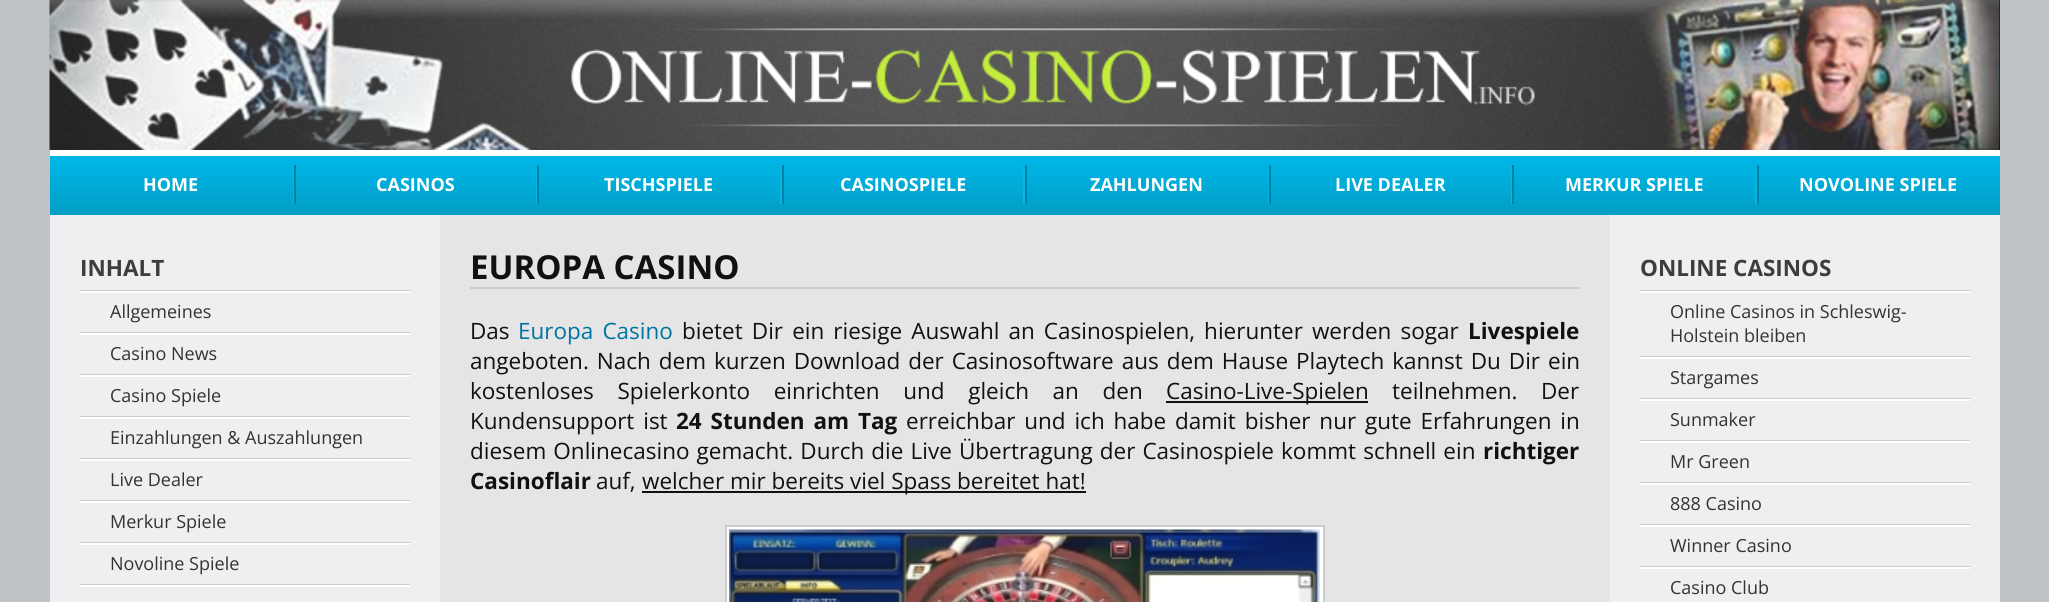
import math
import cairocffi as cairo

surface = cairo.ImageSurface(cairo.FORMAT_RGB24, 2049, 602)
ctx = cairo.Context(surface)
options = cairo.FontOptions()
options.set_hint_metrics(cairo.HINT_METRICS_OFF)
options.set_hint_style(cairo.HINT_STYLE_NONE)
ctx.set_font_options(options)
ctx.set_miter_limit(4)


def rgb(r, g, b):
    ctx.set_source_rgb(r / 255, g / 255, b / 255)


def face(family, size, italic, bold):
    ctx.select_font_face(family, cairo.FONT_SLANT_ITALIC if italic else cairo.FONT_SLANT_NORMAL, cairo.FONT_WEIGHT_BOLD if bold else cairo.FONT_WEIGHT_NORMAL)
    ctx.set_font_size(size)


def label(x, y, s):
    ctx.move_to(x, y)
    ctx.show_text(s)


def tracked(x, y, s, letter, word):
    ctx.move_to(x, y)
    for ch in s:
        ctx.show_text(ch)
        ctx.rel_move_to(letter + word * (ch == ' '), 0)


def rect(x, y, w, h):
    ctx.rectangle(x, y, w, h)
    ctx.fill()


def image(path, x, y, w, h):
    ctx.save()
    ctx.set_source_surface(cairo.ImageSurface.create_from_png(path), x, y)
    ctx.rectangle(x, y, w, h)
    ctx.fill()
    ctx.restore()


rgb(190, 195, 198)
ctx.paint()
rgb(255, 255, 255)
rect(50, 150, 1950, 6)
rgb(0, 0, 0)
rect(1999, 0, 1, 150)
image('image0.png', 49, 0, 1951, 150)
gradient = cairo.LinearGradient(1025, 156, 1025, 215)
gradient.add_color_stop_rgba(0, 0, 0.718, 0.918, 1)
gradient.add_color_stop_rgba(1, 0, 0.62, 0.765, 1)
ctx.set_source(gradient)
rect(50, 156, 1950, 59)
rgb(0, 184, 232)
rect(293, 165, 1, 39)
face('Open Sans', 18, 0, 1)
rgb(255, 255, 255)
label(143, 191, 'HOME')
rgb(0, 184, 232)
rect(536, 165, 1, 39)
rgb(0, 129, 163)
rect(294, 165, 2, 39)
rgb(255, 255, 255)
label(376, 191, 'CASINOS')
rgb(0, 184, 232)
rect(780, 165, 2, 39)
rgb(0, 129, 163)
rect(537, 165, 2, 39)
rgb(255, 255, 255)
label(604, 191, 'TISCHSPIELE')
rgb(0, 184, 232)
rect(1023, 165, 2, 39)
rgb(0, 129, 163)
rect(782, 165, 2, 39)
rgb(255, 255, 255)
label(840, 191, 'CASINOSPIELE')
rgb(0, 184, 232)
rect(1268, 165, 1, 39)
rgb(0, 129, 163)
rect(1025, 165, 2, 39)
rgb(255, 255, 255)
label(1090, 191, 'ZAHLUNGEN')
rgb(0, 184, 232)
rect(1511, 165, 1, 39)
rgb(0, 129, 163)
rect(1269, 165, 2, 39)
rgb(255, 255, 255)
label(1335, 191, 'LIVE DEALER')
rgb(0, 184, 232)
rect(1755, 165, 2, 39)
rgb(0, 129, 163)
rect(1512, 165, 2, 39)
rgb(255, 255, 255)
label(1565, 191, 'MERKUR SPIELE')
rgb(0, 129, 163)
rect(1757, 165, 2, 39)
rgb(255, 255, 255)
label(1799, 191, 'NOVOLINE SPIELE')
rgb(240, 238, 240)
rect(50, 215, 1950, 387)
rgb(204, 204, 204)
rect(80, 290, 330, 1)
face('Open Sans', 22.5, 0, 1)
rgb(61, 61, 61)
label(80, 276, 'INHALT')
rgb(255, 255, 255)
rect(80, 291, 330, 2)
rgb(204, 204, 204)
rect(80, 332, 330, 1)
face('Open Sans', 18, 0, 0)
rgb(51, 51, 51)
label(110, 318, 'Allgemeines')
rgb(255, 255, 255)
rect(80, 333, 330, 2)
rgb(204, 204, 204)
rect(80, 374, 330, 1)
rgb(51, 51, 51)
label(110, 360, 'Casino News')
rgb(255, 255, 255)
rect(80, 375, 330, 2)
rgb(204, 204, 204)
rect(80, 416, 330, 1)
rgb(51, 51, 51)
label(110, 402, 'Casino Spiele')
rgb(255, 255, 255)
rect(80, 417, 330, 2)
rgb(204, 204, 204)
rect(80, 458, 330, 1)
rgb(51, 51, 51)
label(110, 444, 'Einzahlungen & Auszahlungen')
rgb(255, 255, 255)
rect(80, 459, 330, 2)
rgb(204, 204, 204)
rect(80, 500, 330, 1)
rgb(51, 51, 51)
label(110, 486, 'Live Dealer')
rgb(255, 255, 255)
rect(80, 501, 330, 2)
rgb(204, 204, 204)
rect(80, 542, 330, 1)
rgb(51, 51, 51)
label(110, 528, 'Merkur Spiele')
rgb(255, 255, 255)
rect(80, 543, 330, 2)
rgb(204, 204, 204)
rect(80, 584, 330, 1)
rgb(51, 51, 51)
label(110, 570, 'Novoline Spiele')
rgb(255, 255, 255)
rect(80, 585, 330, 2)
rgb(229, 229, 229)
rect(440, 215, 1170, 387)
rgb(204, 204, 204)
rect(470, 287, 1110, 2)
face('Open Sans', 33, 0, 1)
rgb(17, 17, 17)
label(470, 279, 'EUROPA CASINO')
face('Open Sans', 22.5, 0, 0)
label(470, 339, 'Das')
rgb(0, 116, 165)
tracked(518, 339, 'Europa Casino', 0, 3.25)
rgb(17, 17, 17)
tracked(682, 339, 'bietet Dir ein riesige Auswahl an Casinospielen, hierunter werden sogar', 0, 3.25)
face('Open Sans', 22.5, 0, 1)
label(1468, 339, 'Livespiele')
face('Open Sans', 22.5, 0, 0)
tracked(470, 369, 'angeboten. Nach dem kurzen Download der Casinosoftware aus dem Hause Playtech kannst Du Dir ein', 0, 2.1)
tracked(470, 399, 'kostenloses Spielerkonto einrichten und gleich an den', 0, 17.75)
rect(1166, 401, 202, 2)
label(1166, 399, 'Casino-Live-Spielen')
tracked(1392, 399, 'teilnehmen. Der', 0, 17.75)
tracked(470, 429, 'Kundensupport ist', 0, 3)
face('Open Sans', 22.5, 0, 1)
tracked(676, 429, '24 Stunden am Tag', 0, 3)
face('Open Sans', 22.5, 0, 0)
tracked(906, 429, 'erreichbar und ich habe damit bisher nur gute Erfahrungen in', 0, 3)
tracked(470, 459, 'diesem Onlinecasino gemacht. Durch die Live Übertragung der Casinospiele kommt schnell ein', 0, 1.25)
face('Open Sans', 22.5, 0, 1)
label(1483, 459, 'richtiger')
label(470, 489, 'Casinoflair')
face('Open Sans', 22.5, 0, 0)
label(596, 489, 'auf,')
rect(642, 491, 444, 2)
label(642, 489, 'welcher mir bereits viel Spass bereitet hat!')
rgb(255, 255, 255)
ctx.rectangle(726, 526, 598, 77)
ctx.fill_preserve()
rgb(204, 204, 204)
ctx.stroke()
image('image1.png', 729, 529, 591, 73)
rect(1640, 290, 330, 1)
face('Open Sans', 22.5, 0, 1)
rgb(61, 61, 61)
label(1640, 276, 'ONLINE CASINOS')
rgb(255, 255, 255)
rect(1640, 291, 330, 2)
rgb(204, 204, 204)
rect(1640, 356, 330, 1)
face('Open Sans', 18, 0, 0)
rgb(51, 51, 51)
label(1670, 318, 'Online Casinos in Schleswig-')
label(1670, 342, 'Holstein bleiben')
rgb(255, 255, 255)
rect(1640, 357, 330, 2)
rgb(204, 204, 204)
rect(1640, 398, 330, 1)
rgb(51, 51, 51)
label(1670, 384, 'Stargames')
rgb(255, 255, 255)
rect(1640, 399, 330, 2)
rgb(204, 204, 204)
rect(1640, 440, 330, 1)
rgb(51, 51, 51)
label(1670, 426, 'Sunmaker')
rgb(255, 255, 255)
rect(1640, 441, 330, 2)
rgb(204, 204, 204)
rect(1640, 482, 330, 1)
rgb(51, 51, 51)
label(1670, 468, 'Mr Green')
rgb(255, 255, 255)
rect(1640, 483, 330, 2)
rgb(204, 204, 204)
rect(1640, 524, 330, 1)
rgb(51, 51, 51)
label(1670, 510, '888 Casino')
rgb(255, 255, 255)
rect(1640, 525, 330, 2)
rgb(204, 204, 204)
rect(1640, 566, 330, 1)
rgb(51, 51, 51)
label(1670, 552, 'Winner Casino')
rgb(255, 255, 255)
rect(1640, 567, 330, 2)
rgb(51, 51, 51)
label(1670, 594, 'Casino Club')
surface.write_to_png('render.png')
